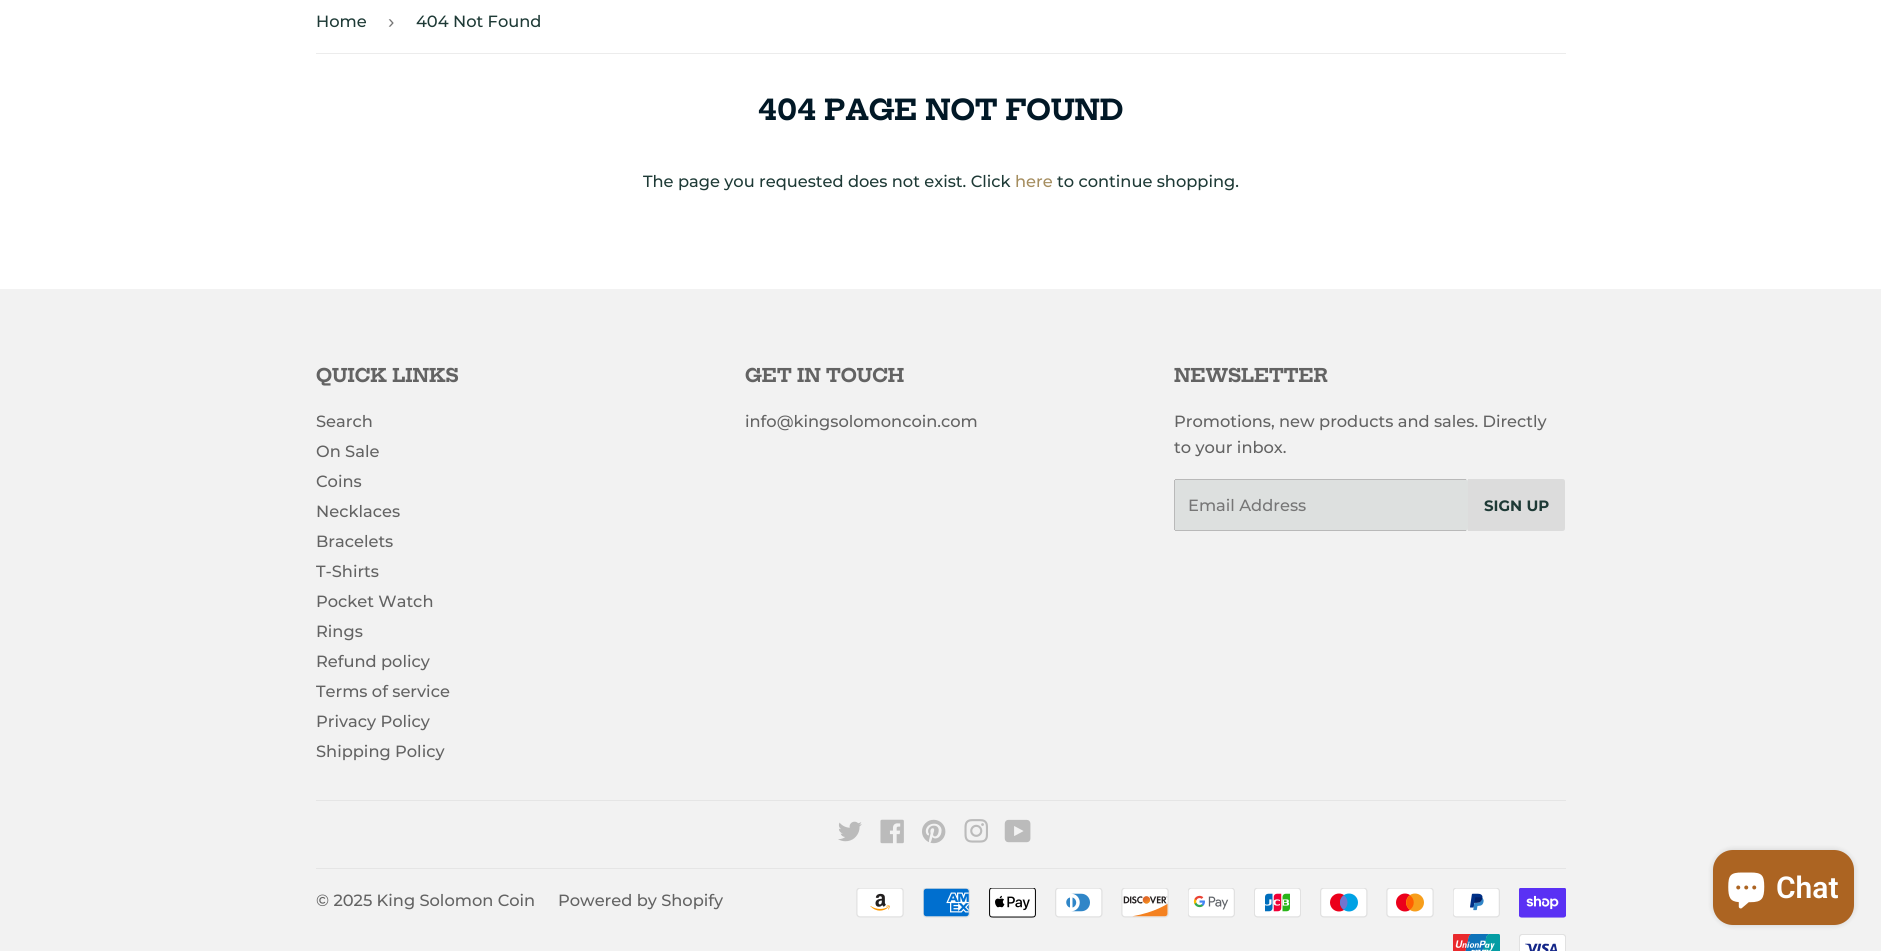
import math
import cairocffi as cairo

surface = cairo.ImageSurface(cairo.FORMAT_RGB24, 1881, 951)
ctx = cairo.Context(surface)
options = cairo.FontOptions()
options.set_hint_metrics(cairo.HINT_METRICS_OFF)
options.set_hint_style(cairo.HINT_STYLE_NONE)
ctx.set_font_options(options)
ctx.set_miter_limit(4)


def rgb(r, g, b):
    ctx.set_source_rgb(r / 255, g / 255, b / 255)


def face(family, size, italic, bold):
    ctx.select_font_face(family, cairo.FONT_SLANT_ITALIC if italic else cairo.FONT_SLANT_NORMAL, cairo.FONT_WEIGHT_BOLD if bold else cairo.FONT_WEIGHT_NORMAL)
    ctx.set_font_size(size)


def label(x, y, s):
    ctx.move_to(x, y)
    ctx.show_text(s)


def rect(x, y, w, h):
    ctx.rectangle(x, y, w, h)
    ctx.fill()


def rrect(x, y, w, h, r):
    ctx.new_sub_path()
    for i, (u, v) in enumerate([(x + w - r, y + h - r), (x + r, y + h - r), (x + r, y + r), (x + w - r, y + r)]):
        ctx.arc(u, v, r, i * math.pi / 2, (i + 1) * math.pi / 2)
    ctx.close_path()


def soft_shadow(x, y, w, h, r, blur, alpha):
    ctx.push_group_with_content(cairo.CONTENT_ALPHA)
    ctx.set_operator(cairo.OPERATOR_SOURCE)
    for i in range(15, -16, -2):
        e = blur * i / 6
        if min(w, h) + 2 * e > 0:
            ctx.set_source_rgba(0, 0, 0, alpha * math.erfc((i - 1) / 8.5) / 2)
            rrect(x - e, y - e, w + 2 * e, h + 2 * e, max(0, min(r + e + blur * .6, min(w, h) / 2 + e)))
            ctx.fill()
    ctx.mask(ctx.pop_group())


def image(path, x, y, w, h):
    ctx.save()
    ctx.set_source_surface(cairo.ImageSurface.create_from_png(path), x, y)
    ctx.rectangle(x, y, w, h)
    ctx.fill()
    ctx.restore()


rgb(255, 255, 255)
ctx.paint()
rgb(236, 236, 236)
rect(316, 53, 1250, 1)
face('Montserrat Medium', 16.25, 0, 0)
rgb(30, 58, 54)
label(316, 27, 'Home')
face('Liberation Sans', 19, 0, 0)
rgb(118, 118, 118)
label(388, 28, '›')
face('Montserrat Medium', 16.25, 0, 0)
rgb(30, 58, 54)
label(416, 27, '404 Not Found')
face('Hepta Slab', 28.2, 0, 1)
rgb(1, 24, 38)
label(758, 120, '404 PAGE NOT FOUND')
face('Montserrat Medium', 16.25, 0, 0)
rgb(30, 58, 54)
label(643, 187, 'The page you requested does not exist. Click')
rgb(165, 141, 95)
label(1015, 187, 'here')
rgb(30, 58, 54)
label(1057, 187, 'to continue shopping.')
rgb(242, 242, 242)
rect(0, 289, 1881, 662)
face('Hepta Slab', 18.5, 0, 1)
rgb(99, 99, 99)
label(316, 382, 'QUICK LINKS')
face('Montserrat Medium', 16.25, 0, 0)
label(316, 427, 'Search')
label(316, 457, 'On Sale')
label(316, 487, 'Coins')
label(316, 517, 'Necklaces')
label(316, 547, 'Bracelets')
label(316, 577, 'T-Shirts')
label(316, 607, 'Pocket Watch')
label(316, 637, 'Rings')
label(316, 667, 'Refund policy')
label(316, 697, 'Terms of service')
label(316, 727, 'Privacy Policy')
label(316, 757, 'Shipping Policy')
face('Hepta Slab', 18.5, 0, 1)
label(745, 382, 'GET IN TOUCH')
face('Montserrat Medium', 16.25, 0, 0)
label(745, 427, 'info@kingsolomoncoin.com')
face('Hepta Slab', 18.5, 0, 1)
label(1174, 382, 'NEWSLETTER')
face('Montserrat Medium', 16.25, 0, 0)
label(1174, 427, 'Promotions, new products and sales. Directly')
label(1174, 453, 'to your inbox.')
rgb(221, 224, 223)
rrect(1174, 479, 294, 52, 2.5)
ctx.fill()
rgb(185, 185, 185)
rect(1175, 479, 291, 1)
rect(1175, 530, 291, 1)
rect(1174, 480, 1, 50)
rgb(118, 118, 118)
label(1188, 511, 'Email Address')
rgb(220, 220, 220)
ctx.new_path()
ctx.move_to(1468, 479)
ctx.line_to(1562.5, 479)
ctx.curve_to(1564, 479, 1565, 480, 1565, 481.5)
ctx.line_to(1565, 528.5)
ctx.curve_to(1565, 530, 1564, 531, 1562.5, 531)
ctx.line_to(1468, 531)
ctx.close_path()
ctx.fill()
face('Montserrat', 15, 0, 1)
rgb(30, 58, 54)
label(1484, 511, 'SIGN UP')
rgb(229, 229, 229)
rect(316, 800, 1250, 1)
image('image0.png', 838, 821, 24, 21)
image('image1.png', 880, 819, 24, 25)
image('image2.png', 922, 819, 24, 25)
image('image3.png', 964, 819, 24, 24)
image('image4.png', 1004, 819, 27, 24)
rect(316, 868, 1250, 1)
face('Montserrat Medium', 16.25, 0, 0)
rgb(99, 99, 99)
label(316, 906, '© 2025 King Solomon Coin')
label(558, 906, 'Powered by Shopify')
image('image5.png', 856, 888, 48, 30)
image('image6.png', 923, 888, 47, 30)
image('image7.png', 989, 888, 47, 30)
image('image8.png', 1055, 888, 48, 30)
image('image9.png', 1121, 888, 48, 30)
image('image10.png', 1188, 888, 47, 30)
image('image11.png', 1254, 888, 47, 30)
image('image12.png', 1320, 888, 48, 30)
image('image13.png', 1386, 888, 48, 30)
image('image14.png', 1453, 888, 47, 30)
image('image15.png', 1519, 888, 47, 30)
image('image16.png', 1453, 934, 47, 17)
image('image17.png', 1519, 934, 47, 17)
rgb(0, 0, 0)
soft_shadow(1713, 850, 141, 75, 20, 3, 0.15)
rgb(172, 100, 34)
rrect(1713, 850, 141, 75, 20)
ctx.fill()
image('image18.png', 1728, 872, 37, 37)
face('Roboto SemiBold', 30, 0, 0)
rgb(255, 255, 255)
label(1776, 898, 'Chat')
surface.write_to_png('render.png')
